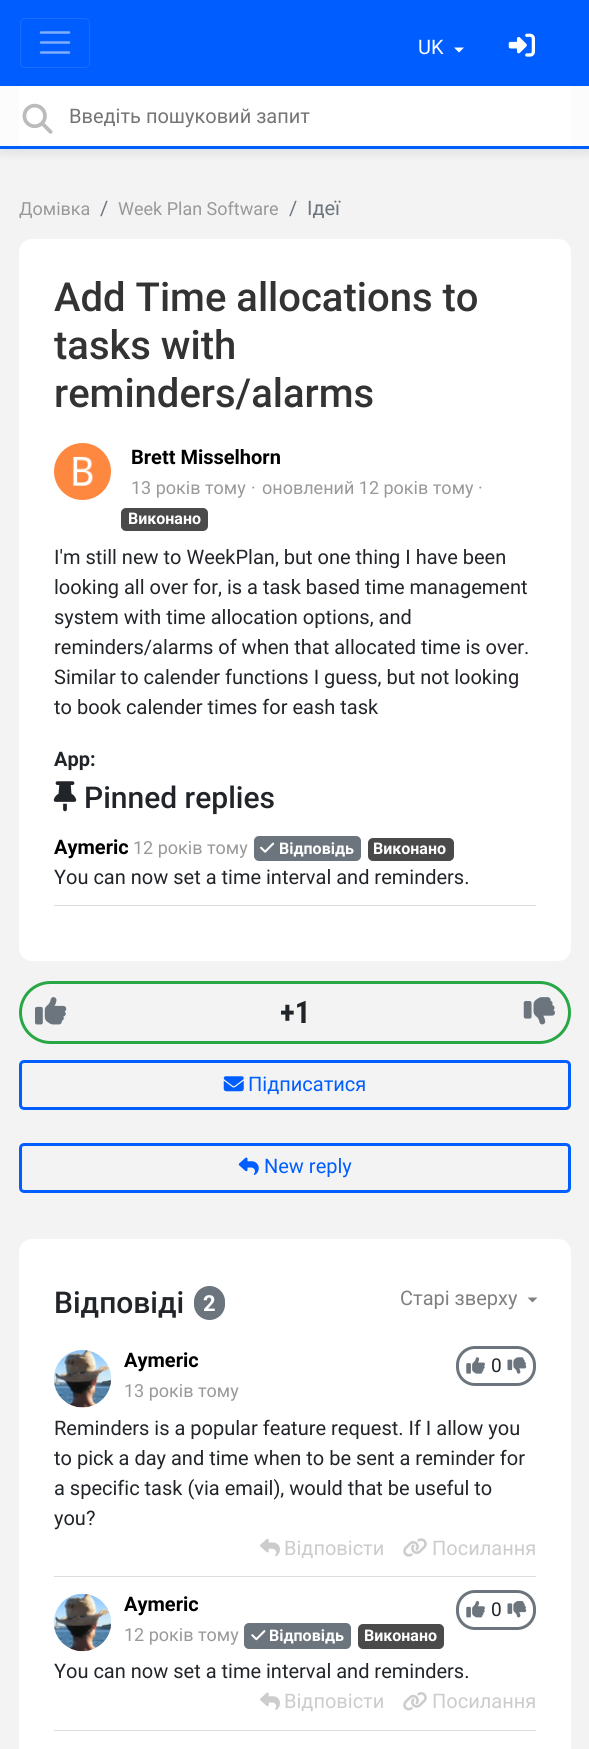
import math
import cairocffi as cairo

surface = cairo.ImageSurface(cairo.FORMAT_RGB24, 589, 1749)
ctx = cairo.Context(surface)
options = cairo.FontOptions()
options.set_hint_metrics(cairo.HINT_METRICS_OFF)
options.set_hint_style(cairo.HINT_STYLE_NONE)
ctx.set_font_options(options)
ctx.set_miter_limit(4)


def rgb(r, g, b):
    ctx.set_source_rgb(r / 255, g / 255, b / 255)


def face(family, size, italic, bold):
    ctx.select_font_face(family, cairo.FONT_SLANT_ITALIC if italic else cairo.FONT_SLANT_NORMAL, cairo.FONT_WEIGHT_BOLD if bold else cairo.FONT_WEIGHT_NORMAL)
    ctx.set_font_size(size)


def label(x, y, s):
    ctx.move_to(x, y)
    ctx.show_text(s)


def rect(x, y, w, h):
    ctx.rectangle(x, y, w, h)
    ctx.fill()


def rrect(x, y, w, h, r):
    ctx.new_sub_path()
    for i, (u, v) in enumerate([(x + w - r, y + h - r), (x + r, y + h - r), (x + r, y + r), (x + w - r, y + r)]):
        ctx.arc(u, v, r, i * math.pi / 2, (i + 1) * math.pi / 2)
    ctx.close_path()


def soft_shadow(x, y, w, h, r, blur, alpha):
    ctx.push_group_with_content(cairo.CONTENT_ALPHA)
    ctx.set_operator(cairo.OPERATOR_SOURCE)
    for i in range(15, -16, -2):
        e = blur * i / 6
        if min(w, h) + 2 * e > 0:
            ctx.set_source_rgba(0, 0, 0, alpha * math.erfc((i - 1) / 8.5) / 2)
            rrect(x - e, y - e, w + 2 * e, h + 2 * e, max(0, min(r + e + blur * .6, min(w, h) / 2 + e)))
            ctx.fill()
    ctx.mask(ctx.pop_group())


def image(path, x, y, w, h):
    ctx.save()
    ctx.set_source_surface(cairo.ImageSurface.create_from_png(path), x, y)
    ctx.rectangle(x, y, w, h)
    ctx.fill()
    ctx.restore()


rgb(243, 243, 243)
ctx.paint()
rgb(0, 93, 255)
rect(0, 0, 589, 86)
rrect(20.5, 18.5, 69, 49, 4.5)
rgb(26, 109, 255)
ctx.set_line_width(1)
ctx.stroke()
ctx.new_path()
ctx.move_to(41, 32.5)
ctx.line_to(69, 32.5)
ctx.move_to(41, 42.5)
ctx.line_to(69, 42.5)
ctx.move_to(41, 52.5)
ctx.line_to(69, 52.5)
rgb(128, 174, 255)
ctx.set_line_width(2.5)
ctx.set_line_cap(cairo.LINE_CAP_ROUND)
ctx.stroke()
face('Roboto', 20, 0, 0)
rgb(255, 255, 255)
label(418, 54, 'UK')
ctx.new_path()
ctx.move_to(454, 47.5)
ctx.line_to(464, 47.5)
ctx.line_to(459, 52.5)
ctx.close_path()
ctx.fill()
image('image0.png', 508, 33, 27, 24)
rgb(100, 100, 100)
soft_shadow(0, 93, 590, 62, 0, 3, 0.1)
rgb(252, 252, 252)
rect(0, 86, 589, 60)
rgb(0, 93, 255)
rect(0, 146, 589, 3)
rgb(255, 255, 255)
rect(19, 86, 552, 60)
image('image1.png', 22, 103, 31, 31)
rgb(117, 117, 117)
label(69, 123, 'Введіть пошуковий запит')
face('Roboto', 18, 0, 0)
rgb(153, 153, 153)
label(19, 215, 'Домівка')
face('Roboto', 20, 0, 0)
rgb(108, 117, 125)
label(100, 215, '/')
face('Roboto', 18, 0, 0)
rgb(153, 153, 153)
label(118, 215, 'Week Plan Software')
face('Roboto', 20, 0, 0)
rgb(108, 117, 125)
label(289, 215, '/')
label(307, 215, 'Ідеї')
rgb(255, 255, 255)
rrect(19, 239, 552, 722, 13)
ctx.fill()
face('Roboto Medium', 40, 0, 0)
rgb(51, 51, 51)
label(54, 311, 'Add Time allocations to')
label(54, 359, 'tasks with')
label(54, 407, 'reminders/alarms')
rgb(255, 136, 65)
ctx.new_path()
ctx.arc(82.5, 471.5, 28.5, 0, 2 * math.pi)
ctx.fill()
image('image2.png', 72, 456, 21, 30)
face('Roboto', 20, 0, 1)
rgb(0, 0, 0)
label(131, 464, 'Brett Misselhorn')
face('Roboto', 18, 0, 0)
rgb(153, 153, 153)
label(131, 494, '13 років тому')
label(251, 494, '·')
label(262, 494, 'оновлений 12 років тому')
label(478, 494, '·')
rgb(74, 74, 74)
rrect(121, 508, 87, 23, 5)
ctx.fill()
face('Roboto', 16, 0, 1)
rgb(255, 255, 255)
label(128, 524, 'Виконано')
face('Roboto', 20, 0, 0)
rgb(33, 37, 41)
label(54, 564, 'I\'m still new to WeekPlan, but one thing I have been')
label(54, 594, 'looking all over for, is a task based time management')
label(54, 624, 'system with time allocation options, and')
label(54, 654, 'reminders/alarms of when that allocated time is over.')
label(54, 684, 'Similar to calender functions I guess, but not looking')
label(54, 714, 'to book calender times for eash task')
face('Roboto', 20, 0, 1)
label(54, 766, 'App:')
image('image3.png', 53, 781, 24, 31)
face('Roboto Medium', 30, 0, 0)
label(84, 808, 'Pinned replies')
rgb(221, 221, 221)
rect(54, 905, 482, 1)
face('Roboto', 20, 0, 1)
rgb(0, 0, 0)
label(54, 854, 'Aymeric')
face('Roboto', 18, 0, 0)
rgb(153, 153, 153)
label(133, 854, '12 років тому')
rgb(108, 117, 125)
rrect(254, 836, 107, 25, 5)
ctx.fill()
image('image4.png', 260, 842, 15, 11)
face('Roboto', 16, 0, 1)
rgb(255, 255, 255)
label(279, 854, 'Відповідь')
rgb(74, 74, 74)
rrect(368, 838, 86, 23, 5)
ctx.fill()
rgb(255, 255, 255)
label(373, 854, 'Виконано')
face('Roboto', 20, 0, 0)
rgb(33, 37, 41)
label(54, 884, 'You can now set a time interval and reminders.')
rrect(20.5, 982.5, 549, 60, 30)
rgb(40, 167, 69)
ctx.set_line_width(3)
ctx.set_line_cap(cairo.LINE_CAP_BUTT)
ctx.stroke()
image('image5.png', 35, 997, 32, 28)
face('Roboto Condensed', 31, 0, 1)
rgb(33, 37, 41)
label(280, 1023, '+1')
image('image6.png', 523, 997, 32, 28)
rrect(20.5, 1061.5, 549, 47, 3.5)
rgb(0, 93, 255)
ctx.stroke()
image('image7.png', 223, 1076, 21, 16)
face('Roboto', 20, 0, 0)
label(248, 1091, 'Підписатися')
rrect(20.5, 1144.5, 549, 47, 3.5)
ctx.stroke()
image('image8.png', 238, 1157, 21, 18)
label(264, 1173, 'New reply')
rgb(255, 255, 255)
rrect(19, 1239, 552, 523, 13)
ctx.fill()
face('Roboto Medium', 30, 0, 0)
rgb(33, 37, 41)
label(54, 1313, 'Відповіді')
rgb(108, 117, 125)
rrect(194, 1286, 31, 34, 15.5)
ctx.fill()
face('Roboto', 22, 0, 1)
rgb(255, 255, 255)
label(203, 1311, '2')
face('Roboto', 20, 0, 0)
rgb(128, 128, 128)
label(400, 1305, 'Старі зверху')
ctx.new_path()
ctx.move_to(527.5, 1297.5)
ctx.line_to(537.5, 1297.5)
ctx.line_to(532.5, 1302.5)
ctx.close_path()
ctx.fill()
rgb(221, 221, 221)
rect(54, 1576, 482, 1)
image('image9.png', 54, 1350, 57, 58)
face('Roboto', 20, 0, 1)
rgb(0, 0, 0)
label(124, 1367, 'Aymeric')
face('Roboto', 18, 0, 0)
rgb(153, 153, 153)
label(124, 1397, '13 років тому')
rrect(457.5, 1347.5, 77, 37, 17.5)
rgb(108, 117, 125)
ctx.stroke()
image('image10.png', 466, 1357, 19, 17)
face('Roboto', 19, 0, 0)
rgb(33, 37, 41)
label(491, 1372, '0')
image('image11.png', 507, 1357, 20, 17)
face('Roboto', 20, 0, 0)
label(54, 1435, 'Reminders is a popular feature request. If I allow you')
label(54, 1465, 'to pick a day and time when to be sent a reminder for')
label(54, 1495, 'a specific task (via email), would that be useful to')
label(54, 1525, 'you?')
image('image12.png', 260, 1538, 20, 19)
rgb(204, 204, 204)
label(284, 1555, 'Відповісти')
image('image13.png', 403, 1538, 24, 19)
label(432, 1555, 'Посилання')
rgb(221, 221, 221)
rect(54, 1730, 482, 1)
image('image14.png', 54, 1593, 57, 59)
face('Roboto', 20, 0, 1)
rgb(0, 0, 0)
label(124, 1611, 'Aymeric')
face('Roboto', 18, 0, 0)
rgb(153, 153, 153)
label(124, 1641, '12 років тому')
rgb(108, 117, 125)
rrect(244, 1623, 107, 26, 5)
ctx.fill()
image('image15.png', 251, 1630, 15, 11)
face('Roboto', 16, 0, 1)
rgb(255, 255, 255)
label(269, 1641, 'Відповідь')
rgb(74, 74, 74)
rrect(358, 1624, 86, 25, 5)
ctx.fill()
rgb(255, 255, 255)
label(364, 1641, 'Виконано')
rrect(457.5, 1591.5, 77, 37, 17.5)
rgb(108, 117, 125)
ctx.stroke()
image('image16.png', 466, 1601, 19, 17)
face('Roboto', 19, 0, 0)
rgb(33, 37, 41)
label(491, 1616, '0')
image('image17.png', 507, 1601, 20, 17)
face('Roboto', 20, 0, 0)
label(54, 1678, 'You can now set a time interval and reminders.')
image('image18.png', 260, 1692, 20, 18)
rgb(204, 204, 204)
label(284, 1708, 'Відповісти')
image('image19.png', 403, 1692, 24, 19)
label(432, 1708, 'Посилання')
surface.write_to_png('render.png')
